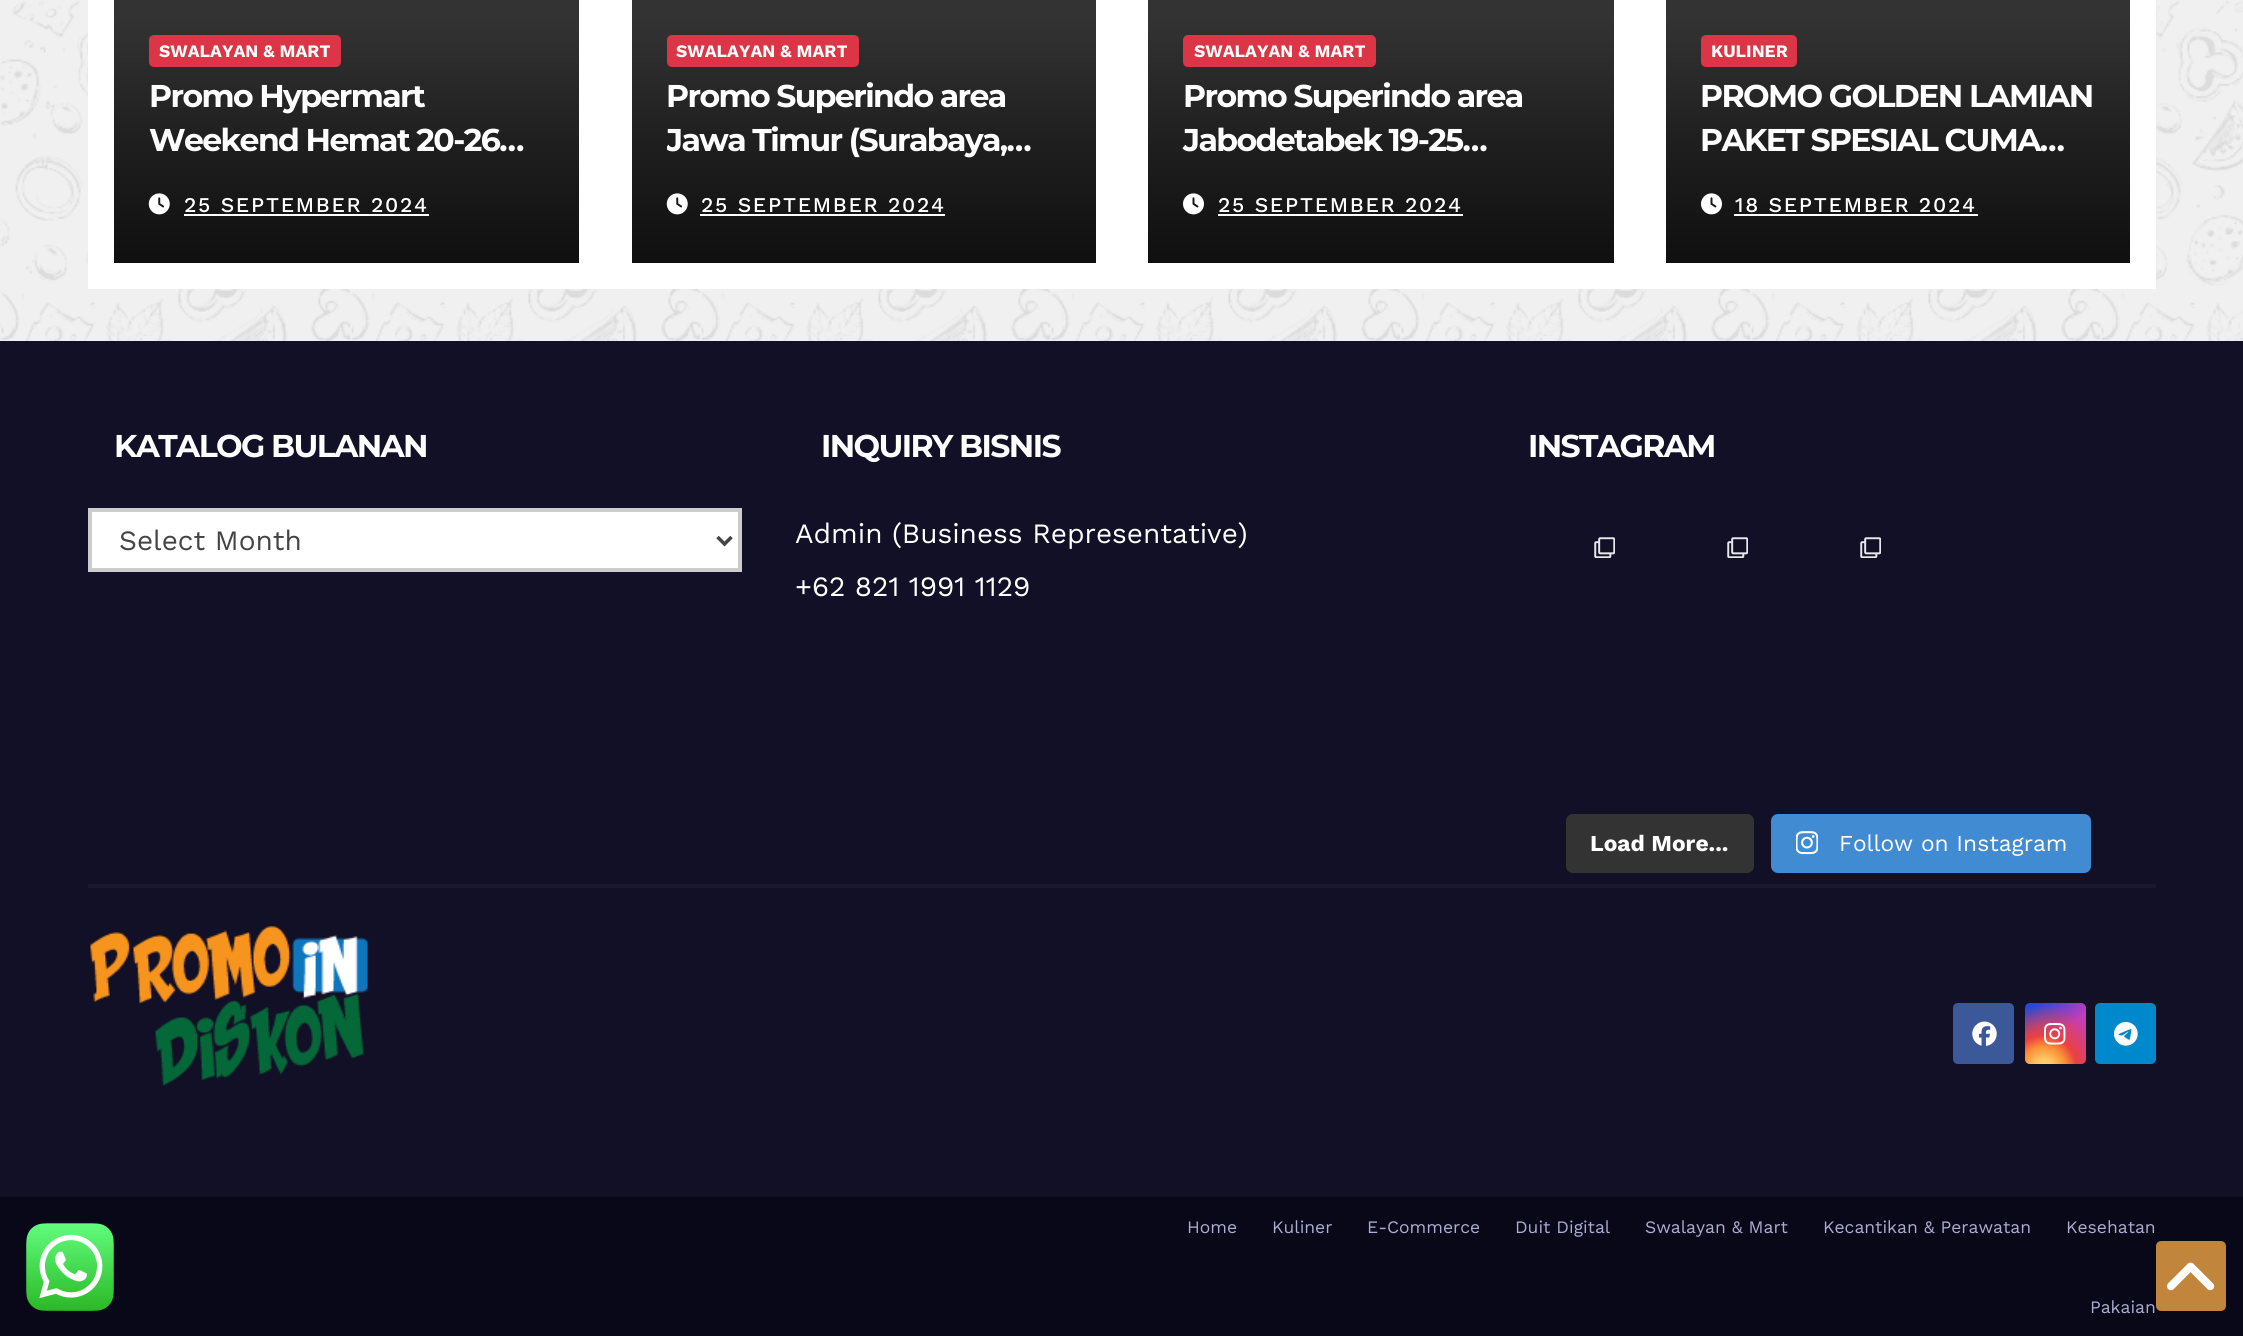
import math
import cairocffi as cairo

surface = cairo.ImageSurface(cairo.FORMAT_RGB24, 2243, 1336)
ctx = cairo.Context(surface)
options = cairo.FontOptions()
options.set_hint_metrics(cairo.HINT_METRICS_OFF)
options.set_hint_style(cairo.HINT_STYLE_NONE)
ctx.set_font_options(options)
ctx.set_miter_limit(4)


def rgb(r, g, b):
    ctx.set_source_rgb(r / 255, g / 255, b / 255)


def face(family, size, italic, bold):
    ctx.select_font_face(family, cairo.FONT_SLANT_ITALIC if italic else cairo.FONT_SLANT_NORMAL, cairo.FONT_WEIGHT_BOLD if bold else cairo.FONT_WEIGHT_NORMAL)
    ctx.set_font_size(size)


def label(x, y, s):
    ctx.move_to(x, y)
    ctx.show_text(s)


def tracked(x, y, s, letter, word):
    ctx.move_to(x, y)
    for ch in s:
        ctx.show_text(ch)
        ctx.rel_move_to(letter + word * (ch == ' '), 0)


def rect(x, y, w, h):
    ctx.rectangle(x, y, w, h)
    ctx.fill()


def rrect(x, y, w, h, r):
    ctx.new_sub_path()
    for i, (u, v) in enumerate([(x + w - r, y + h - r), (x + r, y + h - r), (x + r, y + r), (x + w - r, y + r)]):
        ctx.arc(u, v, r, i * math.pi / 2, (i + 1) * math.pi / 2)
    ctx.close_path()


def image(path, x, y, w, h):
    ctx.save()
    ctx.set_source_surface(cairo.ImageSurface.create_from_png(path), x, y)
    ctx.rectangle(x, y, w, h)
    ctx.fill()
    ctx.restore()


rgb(255, 255, 255)
ctx.paint()
image('image0.png', 0, 0, 2243, 341)
rgb(9, 8, 24)
rect(0, 1197, 2243, 139)
image('image1.png', 26, 1223, 88, 88)
rgb(255, 255, 255)
rect(88, 0, 2068, 289)
rgb(51, 51, 51)
rect(114, 0, 465, 18)
gradient = cairo.LinearGradient(347, 17, 347, 263)
gradient.add_color_stop_rgba(0, 0.2, 0.2, 0.2, 1)
gradient.add_color_stop_rgba(0.5, 0.122, 0.122, 0.122, 1)
gradient.add_color_stop_rgba(1, 0.059, 0.059, 0.059, 1)
ctx.set_source(gradient)
rect(114, 18, 465, 245)
rgb(220, 53, 69)
rrect(149, 35, 192, 32, 5)
ctx.fill()
face('Work Sans', 17.5, 0, 1)
rgb(255, 255, 255)
label(159, 57, 'SWALAYAN & MART')
face('Montserrat', 31.5, 0, 1)
tracked(149, 107, 'Promo Hypermart', -1.6, 0)
tracked(149, 151, 'Weekend Hemat 20-26…', -1.6, 0)
image('image2.png', 148, 193, 22, 22)
face('Work Sans Medium', 21, 0, 0)
tracked(184, 212, '25 SEPTEMBER 2024', 1.75, 0)
rect(184, 214, 245, 2)
rgb(51, 51, 51)
rect(632, 0, 464, 18)
gradient = cairo.LinearGradient(864, 17, 864, 263)
gradient.add_color_stop_rgba(0, 0.2, 0.2, 0.2, 1)
gradient.add_color_stop_rgba(0.5, 0.122, 0.122, 0.122, 1)
gradient.add_color_stop_rgba(1, 0.059, 0.059, 0.059, 1)
ctx.set_source(gradient)
rect(632, 18, 464, 245)
rgb(220, 53, 69)
rrect(667, 35, 192, 32, 5)
ctx.fill()
face('Work Sans', 17.5, 0, 1)
rgb(255, 255, 255)
label(676, 57, 'SWALAYAN & MART')
face('Montserrat', 31.5, 0, 1)
tracked(666, 107, 'Promo Superindo area', -1.6, 0)
ctx.save()
ctx.rectangle(667, 75, 394, 88)
ctx.clip()
tracked(666, 151, 'Jawa Timur (Surabaya,…', -1.6, 0)
ctx.restore()
image('image2.png', 666, 193, 22, 22)
face('Work Sans Medium', 21, 0, 0)
tracked(701, 212, '25 SEPTEMBER 2024', 1.75, 0)
rect(700, 214, 245, 2)
rgb(51, 51, 51)
rect(1148, 0, 466, 18)
gradient = cairo.LinearGradient(1381, 17, 1381, 263)
gradient.add_color_stop_rgba(0, 0.2, 0.2, 0.2, 1)
gradient.add_color_stop_rgba(0.5, 0.122, 0.122, 0.122, 1)
gradient.add_color_stop_rgba(1, 0.059, 0.059, 0.059, 1)
ctx.set_source(gradient)
rect(1148, 18, 466, 245)
rgb(220, 53, 69)
rrect(1183, 35, 193, 32, 5)
ctx.fill()
face('Work Sans', 17.5, 0, 1)
rgb(255, 255, 255)
label(1194, 57, 'SWALAYAN & MART')
face('Montserrat', 31.5, 0, 1)
tracked(1183, 107, 'Promo Superindo area', -1.6, 0)
tracked(1183, 151, 'Jabodetabek 19-25…', -1.6, 0)
image('image3.png', 1183, 193, 21, 22)
face('Work Sans Medium', 21, 0, 0)
tracked(1218, 212, '25 SEPTEMBER 2024', 1.75, 0)
rect(1218, 214, 245, 2)
rgb(51, 51, 51)
rect(1666, 0, 464, 18)
gradient = cairo.LinearGradient(1898, 17, 1898, 263)
gradient.add_color_stop_rgba(0, 0.2, 0.2, 0.2, 1)
gradient.add_color_stop_rgba(0.5, 0.122, 0.122, 0.122, 1)
gradient.add_color_stop_rgba(1, 0.059, 0.059, 0.059, 1)
ctx.set_source(gradient)
rect(1666, 18, 464, 245)
rgb(220, 53, 69)
rrect(1701, 35, 96, 32, 5)
ctx.fill()
face('Work Sans', 17.5, 0, 1)
rgb(255, 255, 255)
label(1711, 57, 'KULINER')
face('Montserrat', 31.5, 0, 1)
tracked(1700, 107, 'PROMO GOLDEN LAMIAN', -1.6, 0)
tracked(1700, 151, 'PAKET SPESIAL CUMA…', -1.6, 0)
image('image3.png', 1701, 193, 21, 22)
face('Work Sans Medium', 21, 0, 0)
tracked(1735, 212, '18 SEPTEMBER 2024', 1.75, 0)
rect(1734, 214, 244, 2)
rgb(18, 16, 38)
rect(0, 341, 2243, 856)
face('Montserrat', 31.5, 0, 1)
rgb(255, 255, 255)
tracked(114, 457, 'KATALOG BULANAN', -1.6, 0)
ctx.rectangle(90, 510, 650, 60)
ctx.fill_preserve()
rgb(204, 204, 204)
ctx.set_line_width(4)
ctx.stroke()
ctx.new_path()
ctx.move_to(717.5, 537)
ctx.line_to(724.5, 544)
ctx.line_to(731.5, 537)
rgb(68, 68, 68)
ctx.set_line_width(3.5)
ctx.stroke()
face('Work Sans', 28, 0, 0)
label(119, 550, 'Select Month')
face('Montserrat', 31.5, 0, 1)
rgb(255, 255, 255)
tracked(821, 457, 'INQUIRY BISNIS', -1.6, 0)
face('Work Sans', 28, 0, 0)
label(795, 543, 'Admin (Business Representative)')
label(795, 596, '+62 821 1991 1129')
face('Montserrat', 31.5, 0, 1)
tracked(1528, 457, 'INSTAGRAM', -1.6, 0)
image('image4.png', 1594, 537, 21, 21)
image('image4.png', 1727, 537, 21, 21)
image('image4.png', 1860, 537, 21, 21)
rgb(51, 51, 51)
rrect(1566, 814, 188, 59, 7)
ctx.fill()
face('Work Sans', 22.75, 0, 1)
rgb(255, 255, 255)
label(1590, 851, 'Load More...')
rgb(64, 139, 209)
rrect(1771, 814, 320, 59, 7)
ctx.fill()
image('image5.png', 1796, 831, 22, 24)
face('Work Sans', 22.75, 0, 0)
rgb(255, 255, 255)
label(1839, 851, 'Follow on Instagram')
rgb(26, 24, 46)
rect(88, 884, 2068, 4)
image('image6.png', 90, 926, 278, 160)
rgb(59, 89, 152)
rrect(1953, 1003, 61, 61, 5)
ctx.fill()
image('image7.png', 1972, 1021, 25, 25)
gradient = cairo.LinearGradient(2025, 1003, 2086, 1064)
gradient.add_color_stop_rgba(0.12, 0.137, 0.294, 0.843, 1)
gradient.add_color_stop_rgba(0.58, 0.765, 0.235, 0.745, 1)
ctx.set_source(gradient)
rrect(2025, 1003, 61, 61, 5)
ctx.fill()
gradient = cairo.RadialGradient(2044, 1068, 0, 2044, 1068, 77)
gradient.add_color_stop_rgba(0, 1, 0.882, 0.49, 1)
gradient.add_color_stop_rgba(0.1, 1, 0.804, 0.412, 1)
gradient.add_color_stop_rgba(0.28, 0.98, 0.569, 0.216, 1)
gradient.add_color_stop_rgba(0.42, 0.922, 0.255, 0.255, 1)
gradient.add_color_stop_rgba(0.82, 0.922, 0.255, 0.255, 0)
ctx.set_source(gradient)
rrect(2025, 1003, 61, 61, 5)
ctx.fill()
image('image8.png', 2044, 1023, 22, 22)
rgb(0, 136, 204)
rrect(2095, 1003, 61, 61, 5)
ctx.fill()
image('image9.png', 2114, 1021, 24, 25)
face('Work Sans', 17.5, 0, 0)
rgb(170, 174, 209)
label(1187, 1233, 'Home')
label(1272, 1233, 'Kuliner')
label(1367, 1233, 'E-Commerce')
label(1515, 1233, 'Duit Digital')
label(1645, 1233, 'Swalayan & Mart')
label(1823, 1233, 'Kecantikan & Perawatan')
label(2066, 1233, 'Kesehatan')
label(2090, 1313, 'Pakaian')
rgb(193, 133, 59)
rrect(2158, 1243, 66, 66, 3)
ctx.fill_preserve()
ctx.set_line_width(4)
ctx.stroke()
image('image10.png', 2167, 1262, 48, 29)
surface.write_to_png('render.png')
